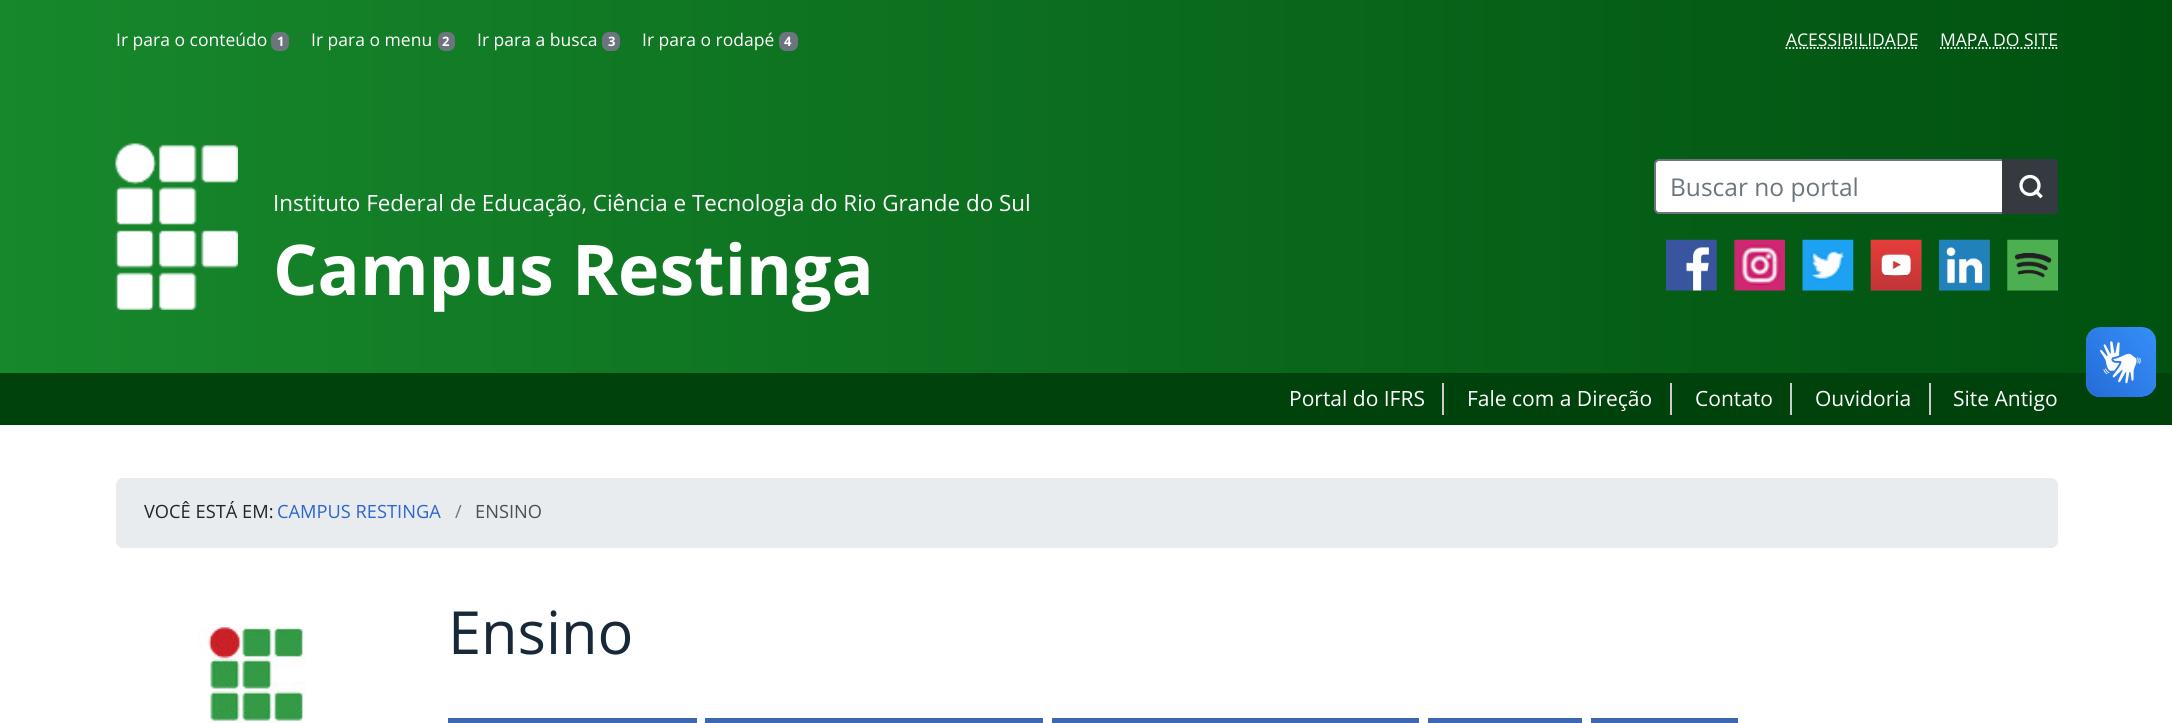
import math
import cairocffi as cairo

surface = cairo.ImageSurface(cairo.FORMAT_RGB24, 2172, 723)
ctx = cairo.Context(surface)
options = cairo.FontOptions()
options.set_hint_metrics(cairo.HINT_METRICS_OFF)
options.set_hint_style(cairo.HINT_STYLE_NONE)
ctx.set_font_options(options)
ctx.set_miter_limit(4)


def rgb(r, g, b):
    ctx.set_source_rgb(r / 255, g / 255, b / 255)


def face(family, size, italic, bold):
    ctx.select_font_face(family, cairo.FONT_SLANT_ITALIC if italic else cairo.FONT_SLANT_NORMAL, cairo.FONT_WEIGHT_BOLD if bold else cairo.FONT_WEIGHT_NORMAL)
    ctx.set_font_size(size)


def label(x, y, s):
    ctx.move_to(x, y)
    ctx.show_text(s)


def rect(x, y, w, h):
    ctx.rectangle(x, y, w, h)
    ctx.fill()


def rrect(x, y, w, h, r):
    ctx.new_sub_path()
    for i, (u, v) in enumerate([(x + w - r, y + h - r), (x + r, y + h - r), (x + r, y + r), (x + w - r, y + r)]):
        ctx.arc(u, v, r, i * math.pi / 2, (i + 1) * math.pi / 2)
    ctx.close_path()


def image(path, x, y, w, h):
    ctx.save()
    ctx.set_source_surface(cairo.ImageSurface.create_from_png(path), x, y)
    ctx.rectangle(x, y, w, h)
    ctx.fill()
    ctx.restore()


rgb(255, 255, 255)
ctx.paint()
gradient = cairo.LinearGradient(0, 213, 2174, 213)
gradient.add_color_stop_rgba(0, 0.09, 0.533, 0.173, 1)
gradient.add_color_stop_rgba(1, 0, 0.318, 0.059, 1)
ctx.set_source(gradient)
rect(0, 0, 2172, 373)
face('Open Sans', 17.5, 0, 0)
rgb(255, 255, 255)
label(116, 46, 'Ir para o conteúdo')
rgb(108, 117, 125)
rrect(271, 32, 18, 19, 7)
ctx.fill()
face('Open Sans', 13, 0, 1)
rgb(255, 255, 255)
label(277, 46, '1')
face('Open Sans', 17.5, 0, 0)
label(311, 46, 'Ir para o menu')
rgb(108, 117, 125)
rrect(438, 32, 17, 19, 7)
ctx.fill()
face('Open Sans', 13, 0, 1)
rgb(255, 255, 255)
label(442, 46, '2')
face('Open Sans', 17.5, 0, 0)
label(477, 46, 'Ir para a busca')
rgb(108, 117, 125)
rrect(602, 32, 18, 19, 7)
ctx.fill()
face('Open Sans', 13, 0, 1)
rgb(255, 255, 255)
label(608, 46, '3')
face('Open Sans', 17.5, 0, 0)
label(642, 46, 'Ir para o rodapé')
rgb(108, 117, 125)
rrect(779, 32, 19, 19, 7)
ctx.fill()
face('Open Sans', 13, 0, 1)
rgb(255, 255, 255)
label(784, 46, '4')
face('Open Sans', 17.5, 0, 0)
label(1786, 46, 'ACESSIBILIDADE')
ctx.new_path()
ctx.move_to(1785.5, 48)
ctx.line_to(1918, 48)
ctx.set_line_width(1.8)
ctx.set_dash([1.75, 1.75])
ctx.stroke()
label(1940, 46, 'MAPA DO SITE')
ctx.new_path()
ctx.move_to(1940, 48)
ctx.line_to(2058, 48)
ctx.stroke()
ctx.new_path()
ctx.move_to(1659, 160)
ctx.line_to(2003, 160)
ctx.line_to(2003, 213)
ctx.line_to(1659, 213)
ctx.curve_to(1657, 213, 1655, 211, 1655, 209)
ctx.line_to(1655, 164)
ctx.curve_to(1655, 162, 1657, 160, 1659, 160)
ctx.close_path()
ctx.fill_preserve()
rgb(108, 117, 125)
ctx.set_line_width(2)
ctx.set_dash([])
ctx.stroke()
face('Open Sans', 24.5, 0, 0)
label(1670, 196, 'Buscar no portal')
rgb(52, 58, 64)
ctx.new_path()
ctx.move_to(2002, 159)
ctx.line_to(2053, 159)
ctx.curve_to(2056, 159, 2058, 161, 2058, 164)
ctx.line_to(2058, 209)
ctx.curve_to(2058, 212, 2056, 214, 2053, 214)
ctx.line_to(2002, 214)
ctx.close_path()
ctx.fill()
ctx.arc(2030, 185.5, 9, 0, 2 * math.pi)
rgb(255, 255, 255)
ctx.set_line_width(3.3)
ctx.stroke()
ctx.new_path()
ctx.move_to(2040.5, 196)
ctx.line_to(2036, 191.5)
ctx.set_line_cap(cairo.LINE_CAP_SQUARE)
ctx.stroke()
ctx.new_path()
ctx.move_to(2003, 160)
ctx.line_to(2053, 160)
ctx.curve_to(2055, 160, 2057, 162, 2057, 164)
ctx.line_to(2057, 209)
ctx.curve_to(2057, 211, 2055, 213, 2053, 213)
ctx.line_to(2003, 213)
ctx.close_path()
rgb(52, 58, 64)
ctx.set_line_width(2)
ctx.set_line_cap(cairo.LINE_CAP_BUTT)
ctx.stroke()
image('image0.png', 1666, 239, 51, 52)
image('image1.png', 1734, 239, 51, 52)
image('image2.png', 1802, 239, 52, 52)
image('image3.png', 1870, 239, 52, 52)
image('image4.png', 1939, 239, 51, 52)
image('image5.png', 2007, 239, 51, 52)
image('image6.png', 115, 143, 123, 167)
face('Open Sans', 22.4, 0, 0)
rgb(255, 255, 255)
label(273, 211, 'Instituto Federal de Educação, Ciência e Tecnologia do Rio Grande do Sul')
face('Open Sans', 70, 0, 1)
label(273, 295, 'Campus Restinga')
rgb(0, 66, 12)
rect(0, 373, 2172, 52)
rgb(204, 204, 204)
rect(1442, 383, 2, 32)
face('Open Sans', 21, 0, 0)
rgb(255, 255, 255)
label(1289, 406, 'Portal do IFRS')
rgb(204, 204, 204)
rect(1670, 383, 2, 32)
rgb(255, 255, 255)
label(1467, 406, 'Fale com a Direção')
rgb(204, 204, 204)
rect(1790, 383, 2, 32)
rgb(255, 255, 255)
label(1695, 406, 'Contato')
rgb(204, 204, 204)
rect(1929, 383, 2, 32)
rgb(255, 255, 255)
label(1815, 406, 'Ouvidoria')
label(1953, 406, 'Site Antigo')
image('image7.png', 2086, 327, 70, 71)
image('image8.png', 2086, 327, 70, 70)
rgb(233, 236, 239)
rrect(116, 478, 1942, 70, 7)
ctx.fill()
face('Open Sans', 18.25, 0, 0)
rgb(33, 37, 41)
label(144, 518, 'VOCÊ ESTÁ EM:')
rgb(44, 102, 206)
label(277, 518, 'CAMPUS RESTINGA')
rgb(108, 117, 125)
label(455, 518, '/')
rgb(73, 80, 87)
label(475, 518, 'ENSINO')
image('image9.png', 197, 627, 109, 96)
face('Open Sans', 59.5, 0, 0)
rgb(23, 41, 56)
label(448, 654, 'Ensino')
rgb(62, 103, 177)
rect(448, 718, 249, 5)
rect(705, 718, 338, 5)
rect(1052, 718, 367, 5)
rect(1428, 718, 154, 5)
rect(1591, 718, 147, 5)
surface.write_to_png('render.png')
